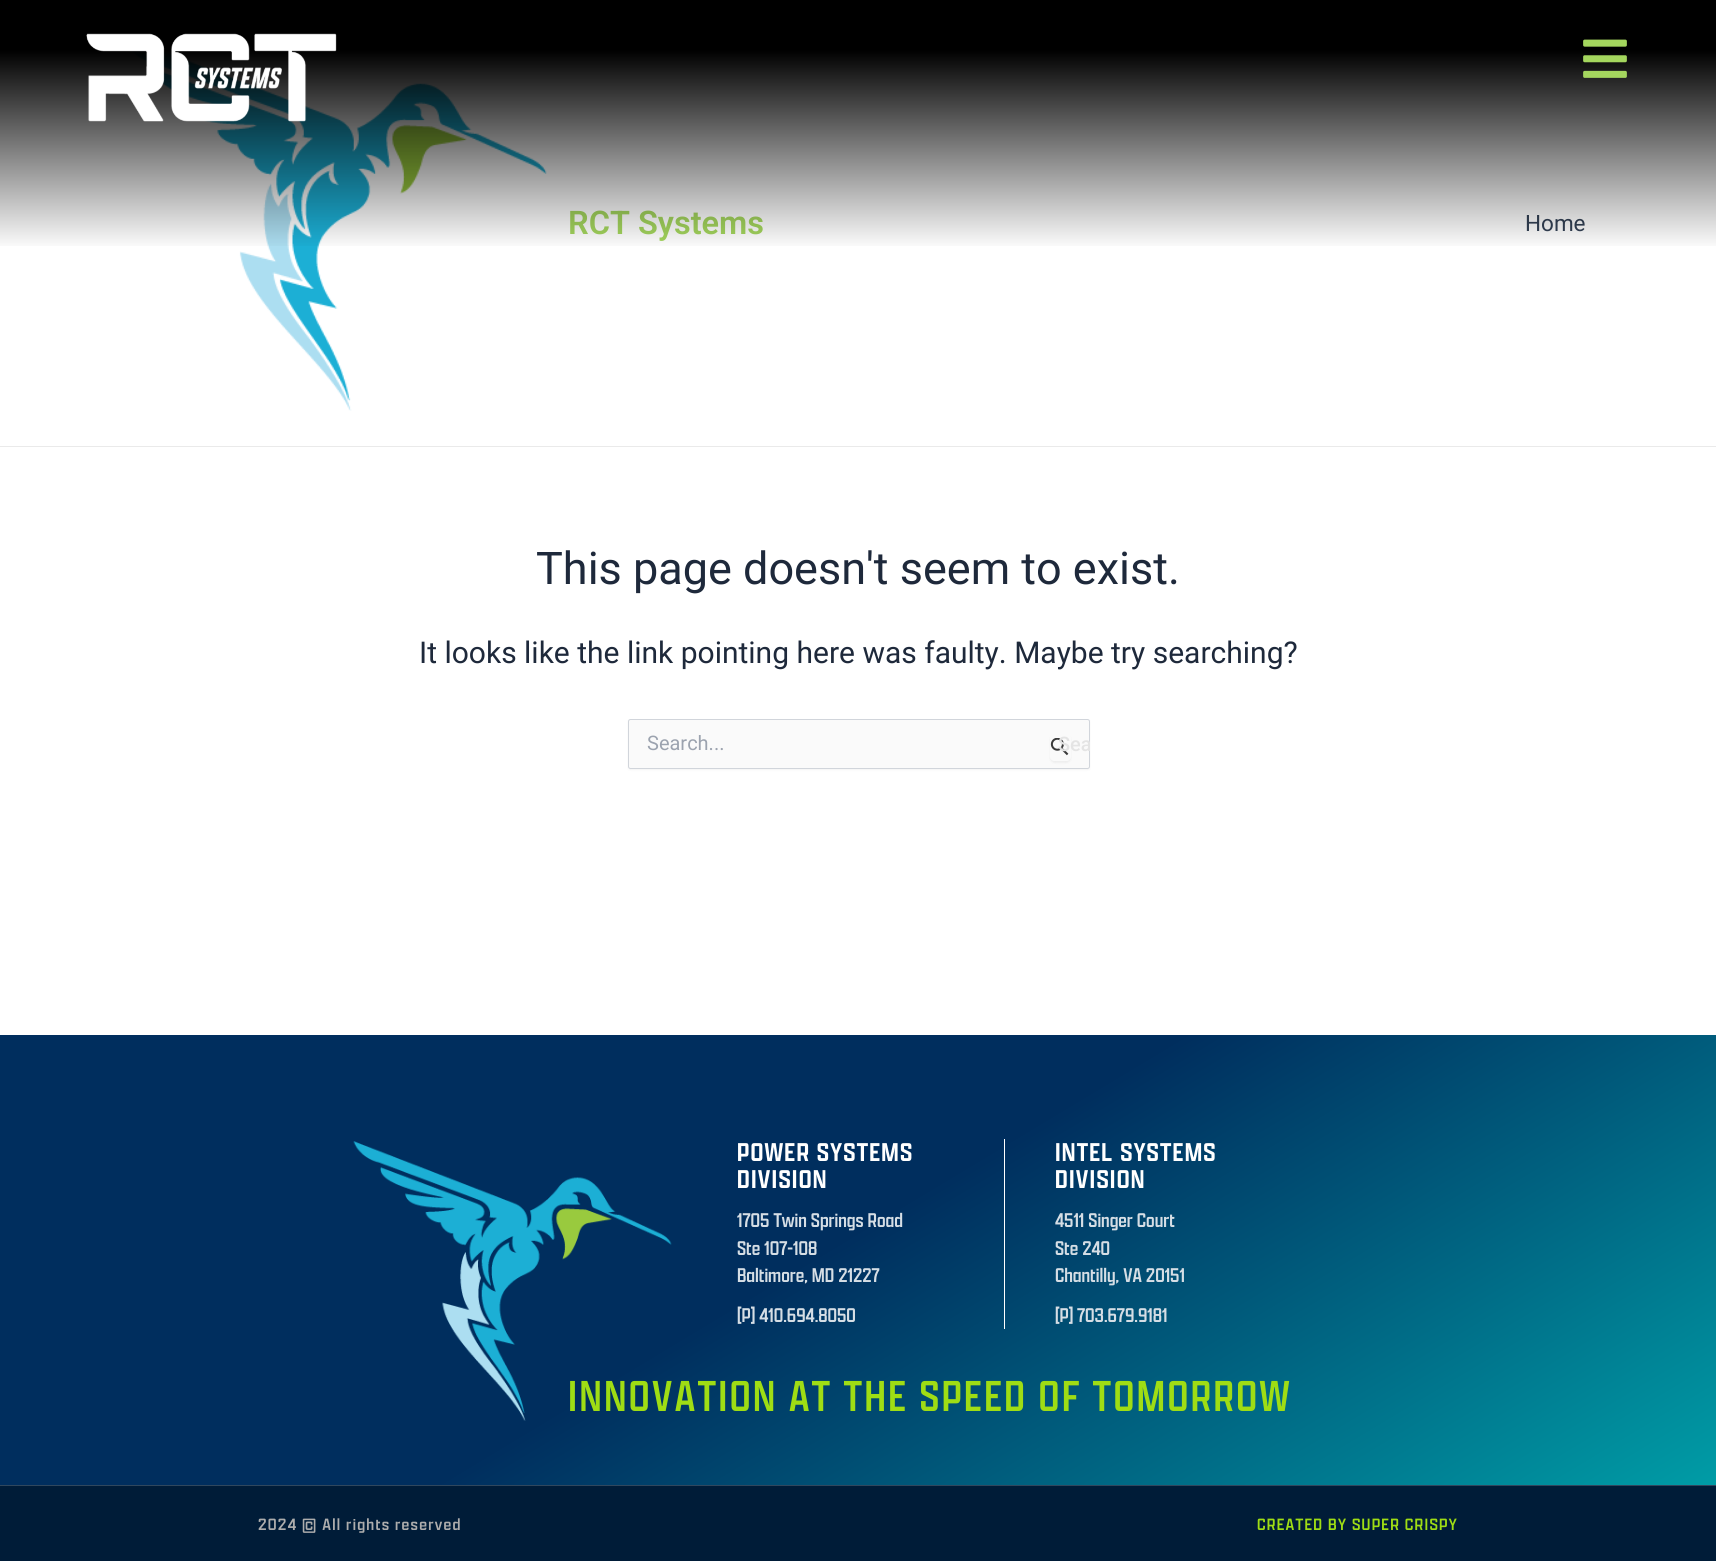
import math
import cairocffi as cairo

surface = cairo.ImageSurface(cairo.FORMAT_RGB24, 1716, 1561)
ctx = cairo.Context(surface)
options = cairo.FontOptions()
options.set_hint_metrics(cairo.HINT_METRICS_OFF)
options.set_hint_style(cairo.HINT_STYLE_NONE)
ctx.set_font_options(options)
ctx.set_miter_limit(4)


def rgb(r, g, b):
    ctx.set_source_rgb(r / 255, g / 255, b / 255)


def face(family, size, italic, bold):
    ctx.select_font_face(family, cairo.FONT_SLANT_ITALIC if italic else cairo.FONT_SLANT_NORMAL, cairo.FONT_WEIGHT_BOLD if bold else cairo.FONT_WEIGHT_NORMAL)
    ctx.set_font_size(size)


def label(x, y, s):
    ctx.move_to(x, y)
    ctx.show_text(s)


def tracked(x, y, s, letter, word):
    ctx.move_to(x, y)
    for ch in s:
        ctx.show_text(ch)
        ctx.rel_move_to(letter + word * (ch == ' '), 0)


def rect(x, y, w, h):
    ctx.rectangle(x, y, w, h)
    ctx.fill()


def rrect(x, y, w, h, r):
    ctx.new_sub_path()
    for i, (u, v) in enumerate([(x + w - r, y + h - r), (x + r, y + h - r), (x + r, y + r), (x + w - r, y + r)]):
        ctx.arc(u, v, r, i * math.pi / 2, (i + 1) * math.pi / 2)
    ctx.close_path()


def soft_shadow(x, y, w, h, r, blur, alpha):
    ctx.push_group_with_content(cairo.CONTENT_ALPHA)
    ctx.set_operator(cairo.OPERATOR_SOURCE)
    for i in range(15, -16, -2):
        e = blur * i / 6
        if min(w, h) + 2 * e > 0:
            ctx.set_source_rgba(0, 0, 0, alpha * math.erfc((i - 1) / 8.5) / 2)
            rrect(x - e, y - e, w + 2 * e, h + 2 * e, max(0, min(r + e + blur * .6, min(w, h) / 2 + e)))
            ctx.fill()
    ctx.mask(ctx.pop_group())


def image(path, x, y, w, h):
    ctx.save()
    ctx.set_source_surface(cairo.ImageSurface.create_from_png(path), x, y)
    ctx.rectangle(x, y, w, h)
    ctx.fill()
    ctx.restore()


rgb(255, 255, 255)
ctx.paint()
image('image2.png', 131, 51, 416, 360)
face('Roboto SemiBold', 32.5, 0, 0)
rgb(164, 214, 94)
label(568, 234, 'RCT Systems')
face('Roboto', 22.5, 0, 0)
rgb(51, 65, 85)
label(1525, 231, 'Home')
gradient = cairo.LinearGradient(858, 0, 858, 250)
gradient.add_color_stop_rgba(0.2, 0, 0, 0, 1)
gradient.add_color_stop_rgba(1, 0, 0, 0, 0)
ctx.set_source(gradient)
rect(0, 0, 1716, 246)
image('image0.png', 86, 33, 251, 89)
image('image1.png', 1583, 39, 44, 39)
rgb(234, 234, 234)
rect(0, 446, 1716, 1)
face('Roboto', 45, 0, 0)
rgb(30, 41, 59)
label(536, 584, 'This page doesn\'t seem to exist.')
face('Roboto', 30, 0, 0)
label(419, 663, 'It looks like the link pointing here was faulty. Maybe try searching?')
rgb(0, 0, 0)
soft_shadow(628, 720, 462, 50, 2.5, 1, 0.05)
rgb(250, 250, 250)
rrect(628.5, 719.5, 461, 49, 2)
ctx.fill_preserve()
rgb(209, 213, 219)
ctx.set_line_width(1)
ctx.stroke()
face('Roboto', 20, 0, 0)
rgb(156, 163, 175)
label(647, 750, 'Search...')
ctx.save()
ctx.set_fill_rule(cairo.FILL_RULE_EVEN_ODD)
ctx.new_path()
ctx.move_to(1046, 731)
ctx.line_to(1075, 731)
ctx.line_to(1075, 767)
ctx.line_to(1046, 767)
ctx.close_path()
ctx.move_to(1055, 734)
ctx.line_to(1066, 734)
ctx.curve_to(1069, 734, 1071, 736, 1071, 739)
ctx.line_to(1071, 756)
ctx.curve_to(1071, 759, 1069, 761, 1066, 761)
ctx.line_to(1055, 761)
ctx.curve_to(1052, 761, 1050, 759, 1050, 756)
ctx.line_to(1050, 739)
ctx.curve_to(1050, 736, 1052, 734, 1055, 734)
ctx.close_path()
ctx.clip()
rgb(0, 0, 0)
soft_shadow(1050, 735, 21, 28, 5, 1, 0.05)
ctx.restore()
image('image3.png', 1050, 738, 19, 18)
ctx.save()
rrect(1034, 719, 56, 52, 2.5)
ctx.clip()
face('Roboto Medium', 20, 0, 0)
rgb(228, 228, 228)
label(1058, 751, 'Sea')
ctx.restore()
gradient = cairo.LinearGradient(531, 716, 1185, 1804)
gradient.add_color_stop_rgba(0.48, 0, 0.18, 0.369, 1)
gradient.add_color_stop_rgba(1, 0, 0.612, 0.651, 1)
ctx.set_source(gradient)
rect(0, 1035, 1716, 450)
face('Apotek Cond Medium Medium', 27.5, 0, 0)
rgb(255, 255, 255)
tracked(737, 1161, 'POWER SYSTEMS', 1.25, 0)
tracked(737, 1188, 'DIVISION', 1.25, 0)
face('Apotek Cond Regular', 21.25, 0, 0)
rgb(214, 222, 229)
label(737, 1227, '1705 Twin Springs Road')
label(737, 1255, 'Ste 107-108')
label(737, 1282, 'Baltimore, MD 21227')
label(737, 1322, '[P] 410.694.8050')
rgb(255, 255, 255)
rect(1004, 1139, 1, 190)
face('Apotek Cond Medium Medium', 27.5, 0, 0)
tracked(1055, 1161, 'INTEL SYSTEMS', 1.25, 0)
tracked(1055, 1188, 'DIVISION', 1.25, 0)
face('Apotek Cond Regular', 21.25, 0, 0)
rgb(214, 222, 229)
label(1055, 1227, '4511 Singer Court')
label(1055, 1255, 'Ste 240')
label(1055, 1282, 'Chantilly, VA 20151')
label(1055, 1322, '[P]')
label(1077, 1322, '703.679.9181')
image('image4.png', 353, 1141, 319, 280)
face('Apotek Cond Regular', 46.25, 0, 0)
rgb(159, 221, 20)
tracked(568, 1411, 'INNOVATION AT THE SPEED OF TOMORROW', 2.5, 0)
rgb(0, 28, 56)
rect(0, 1486, 1716, 75)
rgb(48, 71, 94)
rect(0, 1485, 1716, 1)
face('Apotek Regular', 17.5, 0, 0)
rgb(173, 173, 173)
tracked(258, 1530, '2024 © All rights reserved', 1.25, 0)
rgb(159, 221, 20)
tracked(1257, 1530, 'CREATED BY SUPER CRISPY', 1.25, 0)
surface.write_to_png('render.png')
